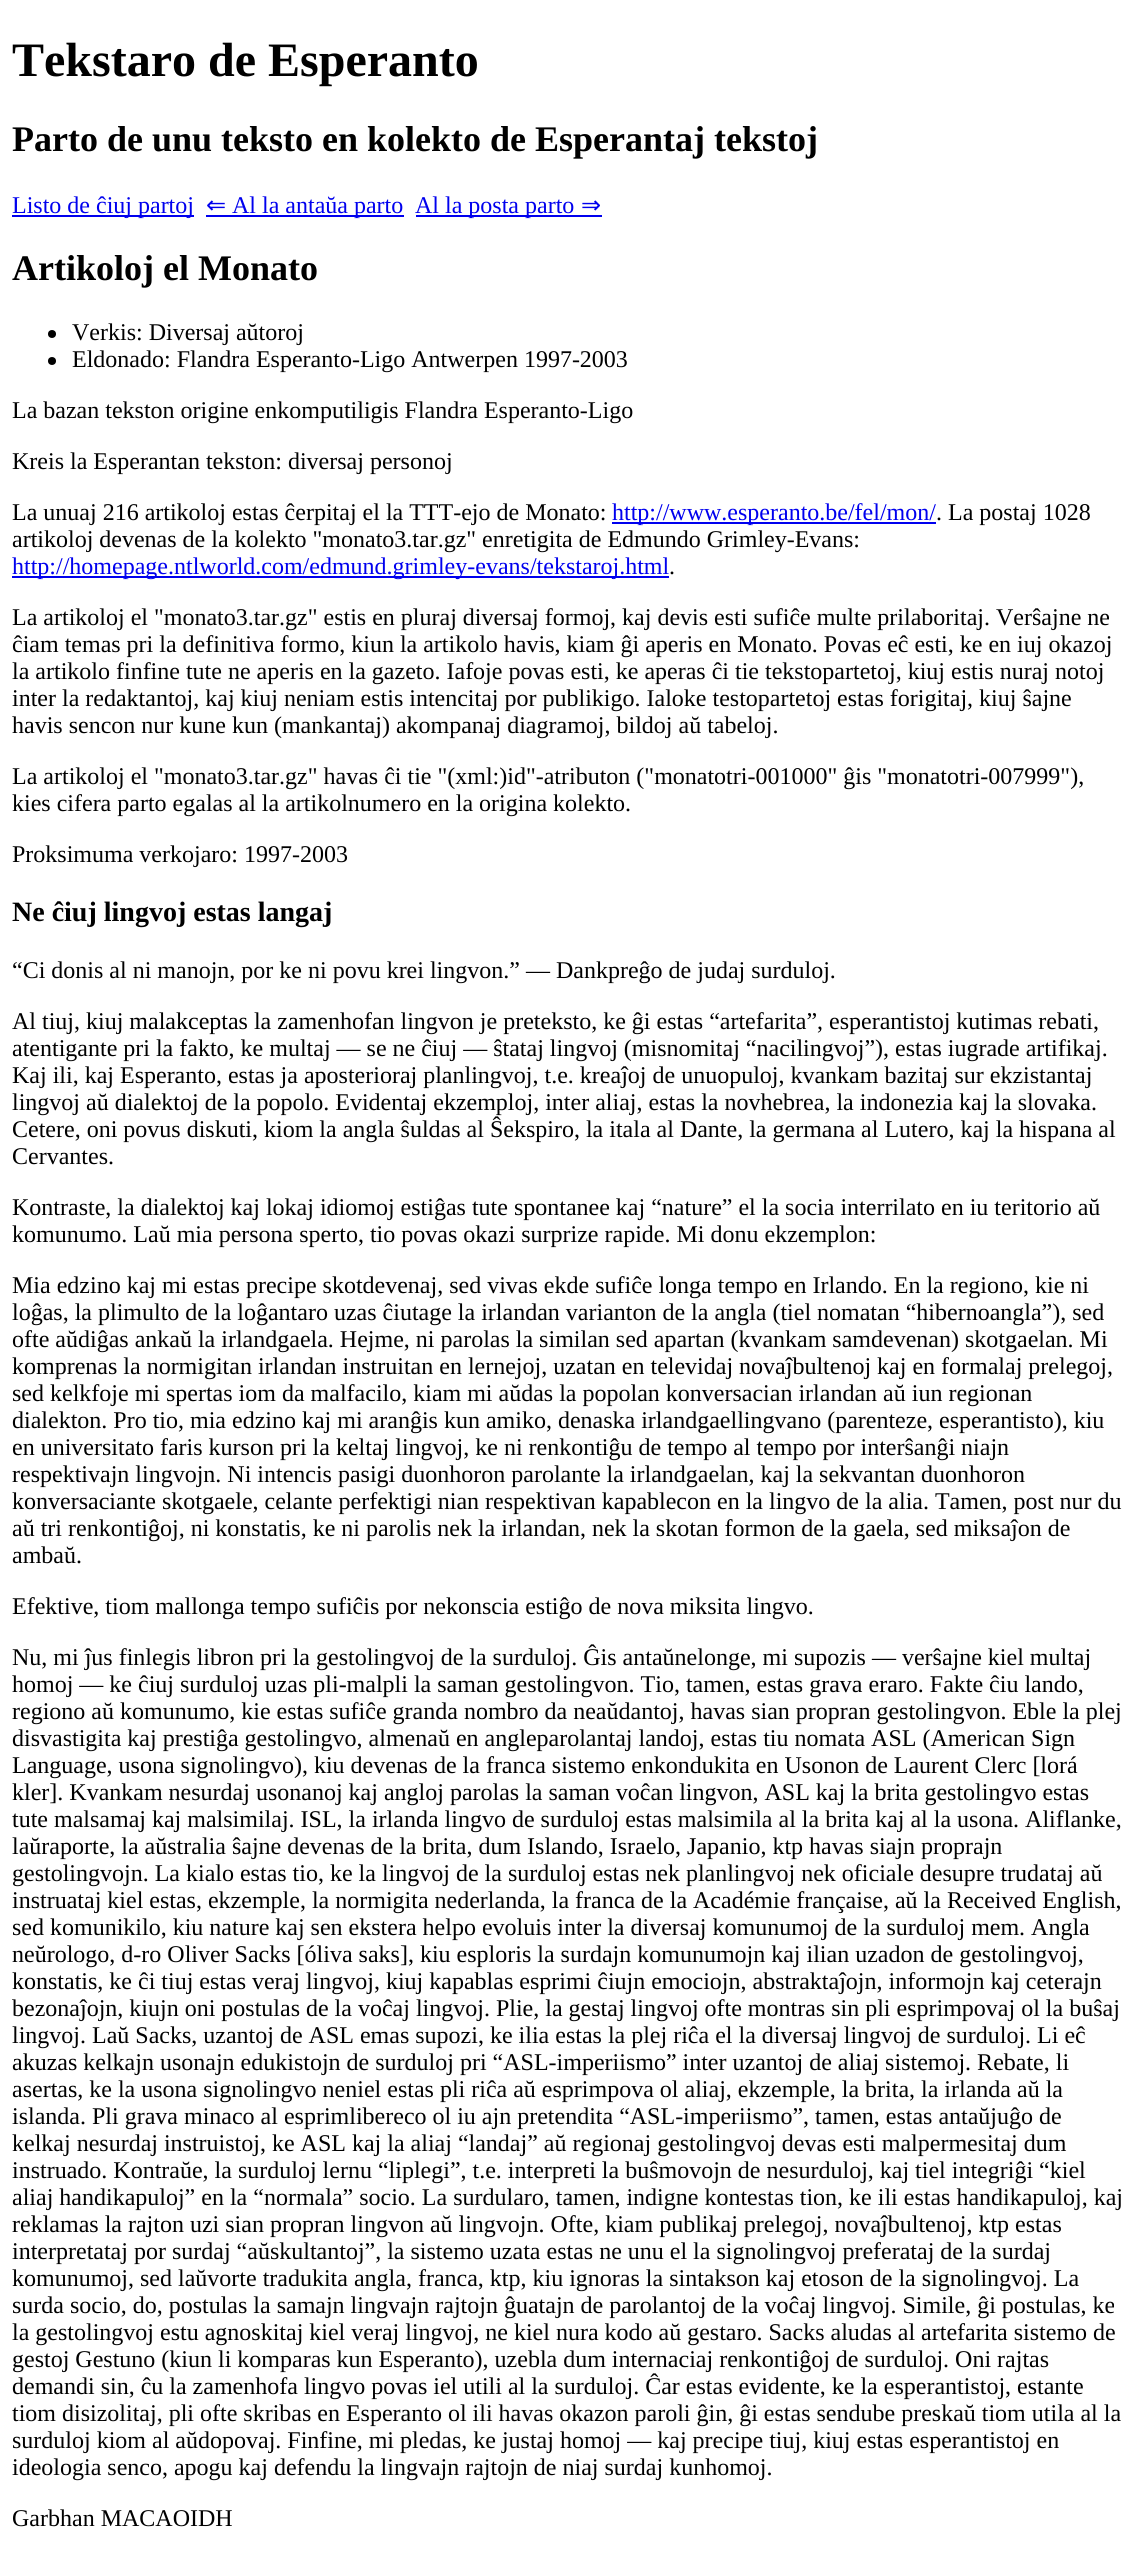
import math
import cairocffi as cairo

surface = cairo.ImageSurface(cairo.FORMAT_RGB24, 1135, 2569)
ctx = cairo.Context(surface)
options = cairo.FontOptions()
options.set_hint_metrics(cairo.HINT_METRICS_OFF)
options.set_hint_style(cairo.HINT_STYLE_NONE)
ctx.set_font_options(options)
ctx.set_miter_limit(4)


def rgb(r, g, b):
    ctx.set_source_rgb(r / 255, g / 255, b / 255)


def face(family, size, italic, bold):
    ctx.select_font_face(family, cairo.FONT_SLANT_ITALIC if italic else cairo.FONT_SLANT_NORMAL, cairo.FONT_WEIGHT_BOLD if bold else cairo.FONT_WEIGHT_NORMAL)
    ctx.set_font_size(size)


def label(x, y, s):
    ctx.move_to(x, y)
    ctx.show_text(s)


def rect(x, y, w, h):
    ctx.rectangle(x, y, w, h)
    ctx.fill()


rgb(255, 255, 255)
ctx.paint()
face('Liberation Serif', 48, 0, 1)
rgb(0, 0, 0)
label(12, 76, 'Tekstaro de Esperanto')
face('Liberation Serif', 36, 0, 1)
label(12, 151, 'Parto de unu teksto en kolekto de Esperantaj tekstoj')
rgb(0, 0, 238)
rect(12, 215, 182, 2)
face('Liberation Serif', 24, 0, 0)
label(12, 213, 'Listo de ĉiuj partoj')
face('DejaVu Sans', 24, 0, 0)
label(206, 213, '⇐')
rect(206, 215, 198, 2)
face('Liberation Serif', 24, 0, 0)
label(232, 213, 'Al la antaŭa parto')
rect(416, 215, 186, 2)
label(415, 213, 'Al la posta parto')
face('DejaVu Sans', 24, 0, 0)
label(581, 213, '⇒')
face('Liberation Serif', 36, 0, 1)
rgb(0, 0, 0)
label(12, 280, 'Artikoloj el Monato')
ctx.new_path()
ctx.arc(52, 334, 4, 0, 2 * math.pi)
ctx.fill()
face('Liberation Serif', 24, 0, 0)
label(72, 340, 'Verkis: Diversaj aŭtoroj')
ctx.new_path()
ctx.arc(52, 361, 4, 0, 2 * math.pi)
ctx.fill()
label(72, 367, 'Eldonado: Flandra Esperanto-Ligo Antwerpen 1997-2003')
label(12, 418, 'La bazan tekston origine enkomputiligis Flandra Esperanto-Ligo')
label(12, 469, 'Kreis la Esperantan tekston: diversaj personoj')
label(12, 520, 'La unuaj 216 artikoloj estas ĉerpitaj el la TTT-ejo de Monato:')
rgb(0, 0, 238)
rect(612, 522, 324, 2)
label(612, 520, 'http://www.esperanto.be/fel/mon/')
rgb(0, 0, 0)
label(936, 520, '. La postaj 1028')
label(12, 547, 'artikoloj devenas de la kolekto "monato3.tar.gz" enretigita de Edmundo Grimley-Evans:')
rgb(0, 0, 238)
rect(12, 576, 657, 2)
label(12, 574, 'http://homepage.ntlworld.com/edmund.grimley-evans/tekstaroj.html')
rgb(0, 0, 0)
label(669, 574, '.')
label(12, 625, 'La artikoloj el "monato3.tar.gz" estis en pluraj diversaj formoj, kaj devis esti sufiĉe multe prilaboritaj. Verŝajne ne')
label(12, 652, 'ĉiam temas pri la definitiva formo, kiun la artikolo havis, kiam ĝi aperis en Monato. Povas eĉ esti, ke en iuj okazoj')
label(12, 679, 'la artikolo finfine tute ne aperis en la gazeto. Iafoje povas esti, ke aperas ĉi tie tekstopartetoj, kiuj estis nuraj notoj')
label(12, 706, 'inter la redaktantoj, kaj kiuj neniam estis intencitaj por publikigo. Ialoke testopartetoj estas forigitaj, kiuj ŝajne')
label(12, 733, 'havis sencon nur kune kun (mankantaj) akompanaj diagramoj, bildoj aŭ tabeloj.')
label(12, 784, 'La artikoloj el "monato3.tar.gz" havas ĉi tie "(xml:)id"-atributon ("monatotri-001000" ĝis "monatotri-007999"),')
label(12, 811, 'kies cifera parto egalas al la artikolnumero en la origina kolekto.')
label(12, 862, 'Proksimuma verkojaro: 1997-2003')
face('Liberation Serif', 28, 0, 1)
label(12, 921, 'Ne ĉiuj lingvoj estas langaj')
face('Liberation Serif', 24, 0, 0)
label(12, 978, '“Ci donis al ni manojn, por ke ni povu krei lingvon.” — Dankpreĝo de judaj surduloj.')
label(12, 1029, 'Al tiuj, kiuj malakceptas la zamenhofan lingvon je preteksto, ke ĝi estas “artefarita”, esperantistoj kutimas rebati,')
label(12, 1056, 'atentigante pri la fakto, ke multaj — se ne ĉiuj — ŝtataj lingvoj (misnomitaj “nacilingvoj”), estas iugrade artifikaj.')
label(12, 1083, 'Kaj ili, kaj Esperanto, estas ja aposterioraj planlingvoj, t.e. kreaĵoj de unuopuloj, kvankam bazitaj sur ekzistantaj')
label(12, 1110, 'lingvoj aŭ dialektoj de la popolo. Evidentaj ekzemploj, inter aliaj, estas la novhebrea, la indonezia kaj la slovaka.')
label(12, 1137, 'Cetere, oni povus diskuti, kiom la angla ŝuldas al Ŝekspiro, la itala al Dante, la germana al Lutero, kaj la hispana al')
label(12, 1164, 'Cervantes.')
label(12, 1215, 'Kontraste, la dialektoj kaj lokaj idiomoj estiĝas tute spontanee kaj “nature” el la socia interrilato en iu teritorio aŭ')
label(12, 1242, 'komunumo. Laŭ mia persona sperto, tio povas okazi surprize rapide. Mi donu ekzemplon:')
label(12, 1293, 'Mia edzino kaj mi estas precipe skotdevenaj, sed vivas ekde sufiĉe longa tempo en Irlando. En la regiono, kie ni')
label(12, 1320, 'loĝas, la plimulto de la loĝantaro uzas ĉiutage la irlandan varianton de la angla (tiel nomatan “hibernoangla”), sed')
label(12, 1347, 'ofte aŭdiĝas ankaŭ la irlandgaela. Hejme, ni parolas la similan sed apartan (kvankam samdevenan) skotgaelan. Mi')
label(12, 1374, 'komprenas la normigitan irlandan instruitan en lernejoj, uzatan en televidaj novaĵbultenoj kaj en formalaj prelegoj,')
label(12, 1401, 'sed kelkfoje mi spertas iom da malfacilo, kiam mi aŭdas la popolan konversacian irlandan aŭ iun regionan')
label(12, 1428, 'dialekton. Pro tio, mia edzino kaj mi aranĝis kun amiko, denaska irlandgaellingvano (parenteze, esperantisto), kiu')
label(12, 1455, 'en universitato faris kurson pri la keltaj lingvoj, ke ni renkontiĝu de tempo al tempo por interŝanĝi niajn')
label(12, 1482, 'respektivajn lingvojn. Ni intencis pasigi duonhoron parolante la irlandgaelan, kaj la sekvantan duonhoron')
label(12, 1509, 'konversaciante skotgaele, celante perfektigi nian respektivan kapablecon en la lingvo de la alia. Tamen, post nur du')
label(12, 1536, 'aŭ tri renkontiĝoj, ni konstatis, ke ni parolis nek la irlandan, nek la skotan formon de la gaela, sed miksaĵon de')
label(12, 1563, 'ambaŭ.')
label(12, 1614, 'Efektive, tiom mallonga tempo sufiĉis por nekonscia estiĝo de nova miksita lingvo.')
label(12, 1665, 'Nu, mi ĵus finlegis libron pri la gestolingvoj de la surduloj. Ĝis antaŭnelonge, mi supozis — verŝajne kiel multaj')
label(12, 1692, 'homoj — ke ĉiuj surduloj uzas pli-malpli la saman gestolingvon. Tio, tamen, estas grava eraro. Fakte ĉiu lando,')
label(12, 1719, 'regiono aŭ komunumo, kie estas sufiĉe granda nombro da neaŭdantoj, havas sian propran gestolingvon. Eble la plej')
label(12, 1746, 'disvastigita kaj prestiĝa gestolingvo, almenaŭ en angleparolantaj landoj, estas tiu nomata ASL (American Sign')
label(12, 1773, 'Language, usona signolingvo), kiu devenas de la franca sistemo enkondukita en Usonon de Laurent Clerc [lorá')
label(12, 1800, 'kler]. Kvankam nesurdaj usonanoj kaj angloj parolas la saman voĉan lingvon, ASL kaj la brita gestolingvo estas')
label(12, 1827, 'tute malsamaj kaj malsimilaj. ISL, la irlanda lingvo de surduloj estas malsimila al la brita kaj al la usona. Aliflanke,')
label(12, 1854, 'laŭraporte, la aŭstralia ŝajne devenas de la brita, dum Islando, Israelo, Japanio, ktp havas siajn proprajn')
label(12, 1881, 'gestolingvojn. La kialo estas tio, ke la lingvoj de la surduloj estas nek planlingvoj nek oficiale desupre trudataj aŭ')
label(12, 1908, 'instruataj kiel estas, ekzemple, la normigita nederlanda, la franca de la Académie française, aŭ la Received English,')
label(12, 1935, 'sed komunikilo, kiu nature kaj sen ekstera helpo evoluis inter la diversaj komunumoj de la surduloj mem. Angla')
label(12, 1962, 'neŭrologo, d-ro Oliver Sacks [óliva saks], kiu esploris la surdajn komunumojn kaj ilian uzadon de gestolingvoj,')
label(12, 1989, 'konstatis, ke ĉi tiuj estas veraj lingvoj, kiuj kapablas esprimi ĉiujn emociojn, abstraktaĵojn, informojn kaj ceterajn')
label(12, 2016, 'bezonaĵojn, kiujn oni postulas de la voĉaj lingvoj. Plie, la gestaj lingvoj ofte montras sin pli esprimpovaj ol la buŝaj')
label(12, 2043, 'lingvoj. Laŭ Sacks, uzantoj de ASL emas supozi, ke ilia estas la plej riĉa el la diversaj lingvoj de surduloj. Li eĉ')
label(12, 2070, 'akuzas kelkajn usonajn edukistojn de surduloj pri “ASL-imperiismo” inter uzantoj de aliaj sistemoj. Rebate, li')
label(12, 2097, 'asertas, ke la usona signolingvo neniel estas pli riĉa aŭ esprimpova ol aliaj, ekzemple, la brita, la irlanda aŭ la')
label(12, 2124, 'islanda. Pli grava minaco al esprimlibereco ol iu ajn pretendita “ASL-imperiismo”, tamen, estas antaŭjuĝo de')
label(12, 2151, 'kelkaj nesurdaj instruistoj, ke ASL kaj la aliaj “landaj” aŭ regionaj gestolingvoj devas esti malpermesitaj dum')
label(12, 2178, 'instruado. Kontraŭe, la surduloj lernu “liplegi”, t.e. interpreti la buŝmovojn de nesurduloj, kaj tiel integriĝi “kiel')
label(12, 2205, 'aliaj handikapuloj” en la “normala” socio. La surdularo, tamen, indigne kontestas tion, ke ili estas handikapuloj, kaj')
label(12, 2232, 'reklamas la rajton uzi sian propran lingvon aŭ lingvojn. Ofte, kiam publikaj prelegoj, novaĵbultenoj, ktp estas')
label(12, 2259, 'interpretataj por surdaj “aŭskultantoj”, la sistemo uzata estas ne unu el la signolingvoj preferataj de la surdaj')
label(12, 2286, 'komunumoj, sed laŭvorte tradukita angla, franca, ktp, kiu ignoras la sintakson kaj etoson de la signolingvoj. La')
label(12, 2313, 'surda socio, do, postulas la samajn lingvajn rajtojn ĝuatajn de parolantoj de la voĉaj lingvoj. Simile, ĝi postulas, ke')
label(12, 2340, 'la gestolingvoj estu agnoskitaj kiel veraj lingvoj, ne kiel nura kodo aŭ gestaro. Sacks aludas al artefarita sistemo de')
label(12, 2367, 'gestoj Gestuno (kiun li komparas kun Esperanto), uzebla dum internaciaj renkontiĝoj de surduloj. Oni rajtas')
label(12, 2394, 'demandi sin, ĉu la zamenhofa lingvo povas iel utili al la surduloj. Ĉar estas evidente, ke la esperantistoj, estante')
label(12, 2421, 'tiom disizolitaj, pli ofte skribas en Esperanto ol ili havas okazon paroli ĝin, ĝi estas sendube preskaŭ tiom utila al la')
label(12, 2448, 'surduloj kiom al aŭdopovaj. Finfine, mi pledas, ke justaj homoj — kaj precipe tiuj, kiuj estas esperantistoj en')
label(12, 2475, 'ideologia senco, apogu kaj defendu la lingvajn rajtojn de niaj surdaj kunhomoj.')
label(12, 2526, 'Garbhan MACAOIDH')
surface.write_to_png('render.png')
